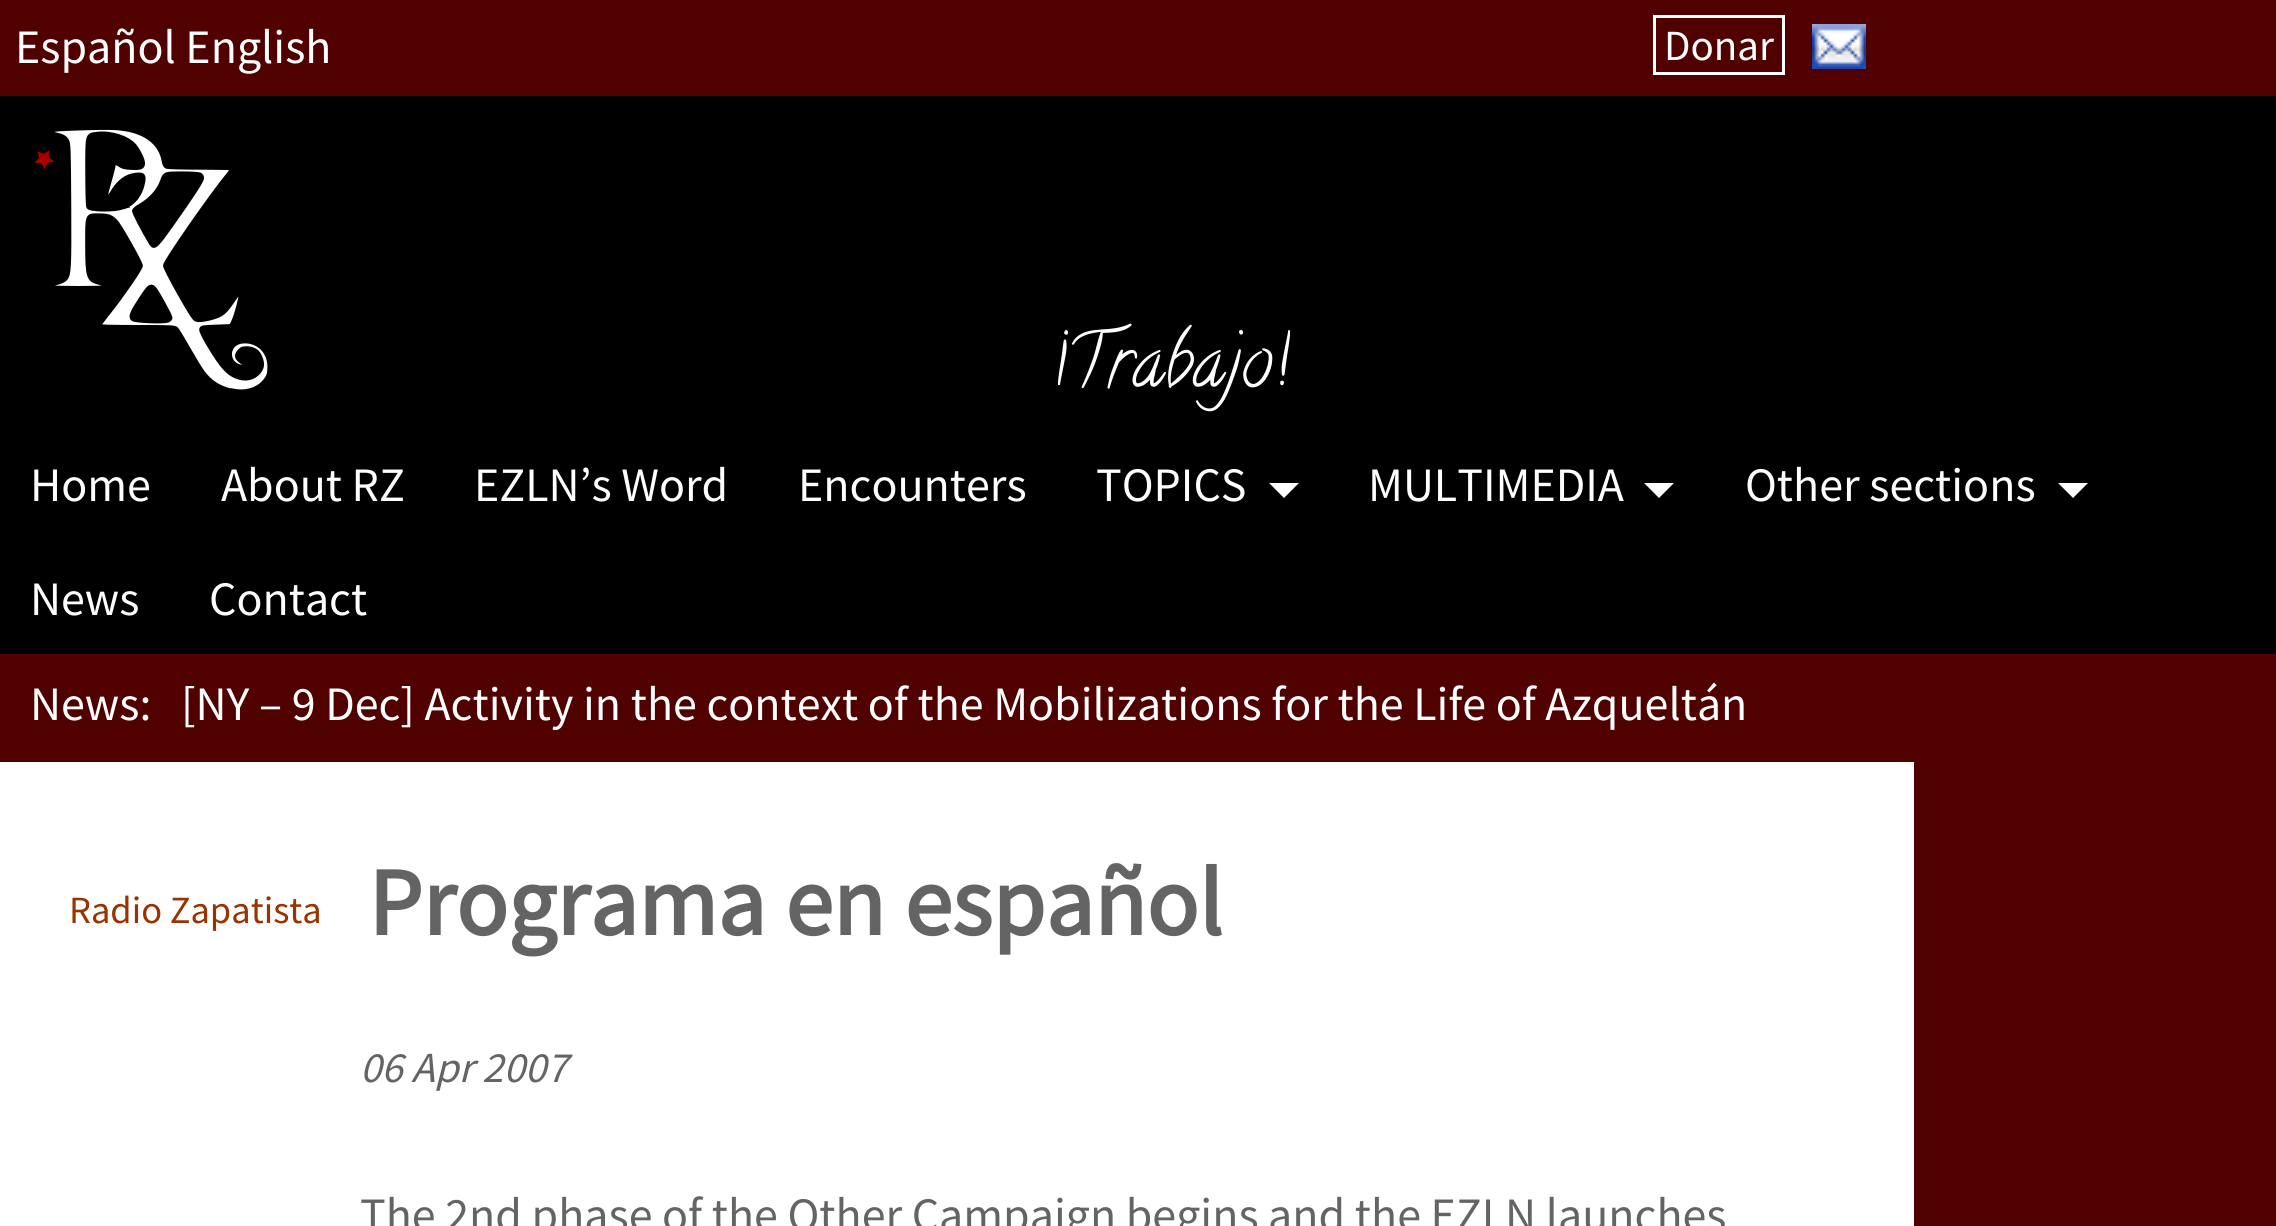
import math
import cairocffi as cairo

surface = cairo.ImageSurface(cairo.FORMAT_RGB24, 2276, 1226)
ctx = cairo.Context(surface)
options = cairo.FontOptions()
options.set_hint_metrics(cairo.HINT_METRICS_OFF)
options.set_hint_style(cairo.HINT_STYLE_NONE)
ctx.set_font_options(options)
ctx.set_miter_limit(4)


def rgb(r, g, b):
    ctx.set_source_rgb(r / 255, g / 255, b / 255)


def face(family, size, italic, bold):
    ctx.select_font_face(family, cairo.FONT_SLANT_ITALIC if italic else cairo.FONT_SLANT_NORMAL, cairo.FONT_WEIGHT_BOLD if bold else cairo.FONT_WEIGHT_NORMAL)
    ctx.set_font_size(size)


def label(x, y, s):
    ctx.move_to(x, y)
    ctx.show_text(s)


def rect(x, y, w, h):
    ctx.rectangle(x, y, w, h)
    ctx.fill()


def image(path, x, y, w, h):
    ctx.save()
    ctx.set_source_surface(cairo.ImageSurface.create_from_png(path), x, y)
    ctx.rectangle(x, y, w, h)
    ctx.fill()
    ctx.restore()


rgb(81, 0, 0)
ctx.paint()
face('Source Sans Pro', 48, 0, 0)
rgb(255, 255, 255)
label(15, 63, 'Español English')
ctx.rectangle(1654.5, 16.5, 129, 57)
ctx.set_line_width(3)
ctx.stroke()
face('Source Sans Pro', 43, 0, 0)
label(1664, 60, 'Donar')
image('image0.png', 1812, 24, 54, 45)
rgb(0, 0, 0)
rect(0, 96, 2276, 558)
image('image1.png', 34, 129, 234, 261)
face('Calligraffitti', 72, 0, 0)
rgb(255, 255, 255)
label(1050, 384, '¡Trabajo!')
face('Source Sans Pro', 48, 0, 0)
label(30, 501, 'Home')
label(221, 501, 'About RZ')
label(474, 501, 'EZLN’s Word')
label(798, 501, 'Encounters')
label(1096, 501, 'TOPICS')
ctx.new_path()
ctx.move_to(1269, 483)
ctx.line_to(1299, 483)
ctx.line_to(1284, 498)
ctx.close_path()
ctx.fill()
label(1368, 501, 'MULTIMEDIA')
ctx.new_path()
ctx.move_to(1644, 483)
ctx.line_to(1674, 483)
ctx.line_to(1659, 498)
ctx.close_path()
ctx.fill()
label(1745, 501, 'Other sections')
ctx.new_path()
ctx.move_to(2058, 483)
ctx.line_to(2088, 483)
ctx.line_to(2073, 498)
ctx.close_path()
ctx.fill()
label(30, 615, 'News')
label(209, 615, 'Contact')
label(30, 720, 'News:')
label(181, 720, '[NY – 9 Dec] Activity in the context of the Mobilizations for the Life of Azqueltán')
rect(0, 762, 1914, 464)
face('Source Sans Pro', 38.5, 0, 0)
rgb(153, 51, 0)
label(69, 923, 'Radio Zapatista')
face('Source Sans Pro', 96, 0, 1)
rgb(100, 100, 100)
label(368, 935, 'Programa en español')
face('Source Sans Pro', 43, 1, 0)
label(360, 1082, '06 Apr 2007')
face('Source Sans Pro', 48, 0, 0)
label(360, 1231, 'The 2nd phase of the Other Campaign begins and the EZLN launches')
surface.write_to_png('render.png')
